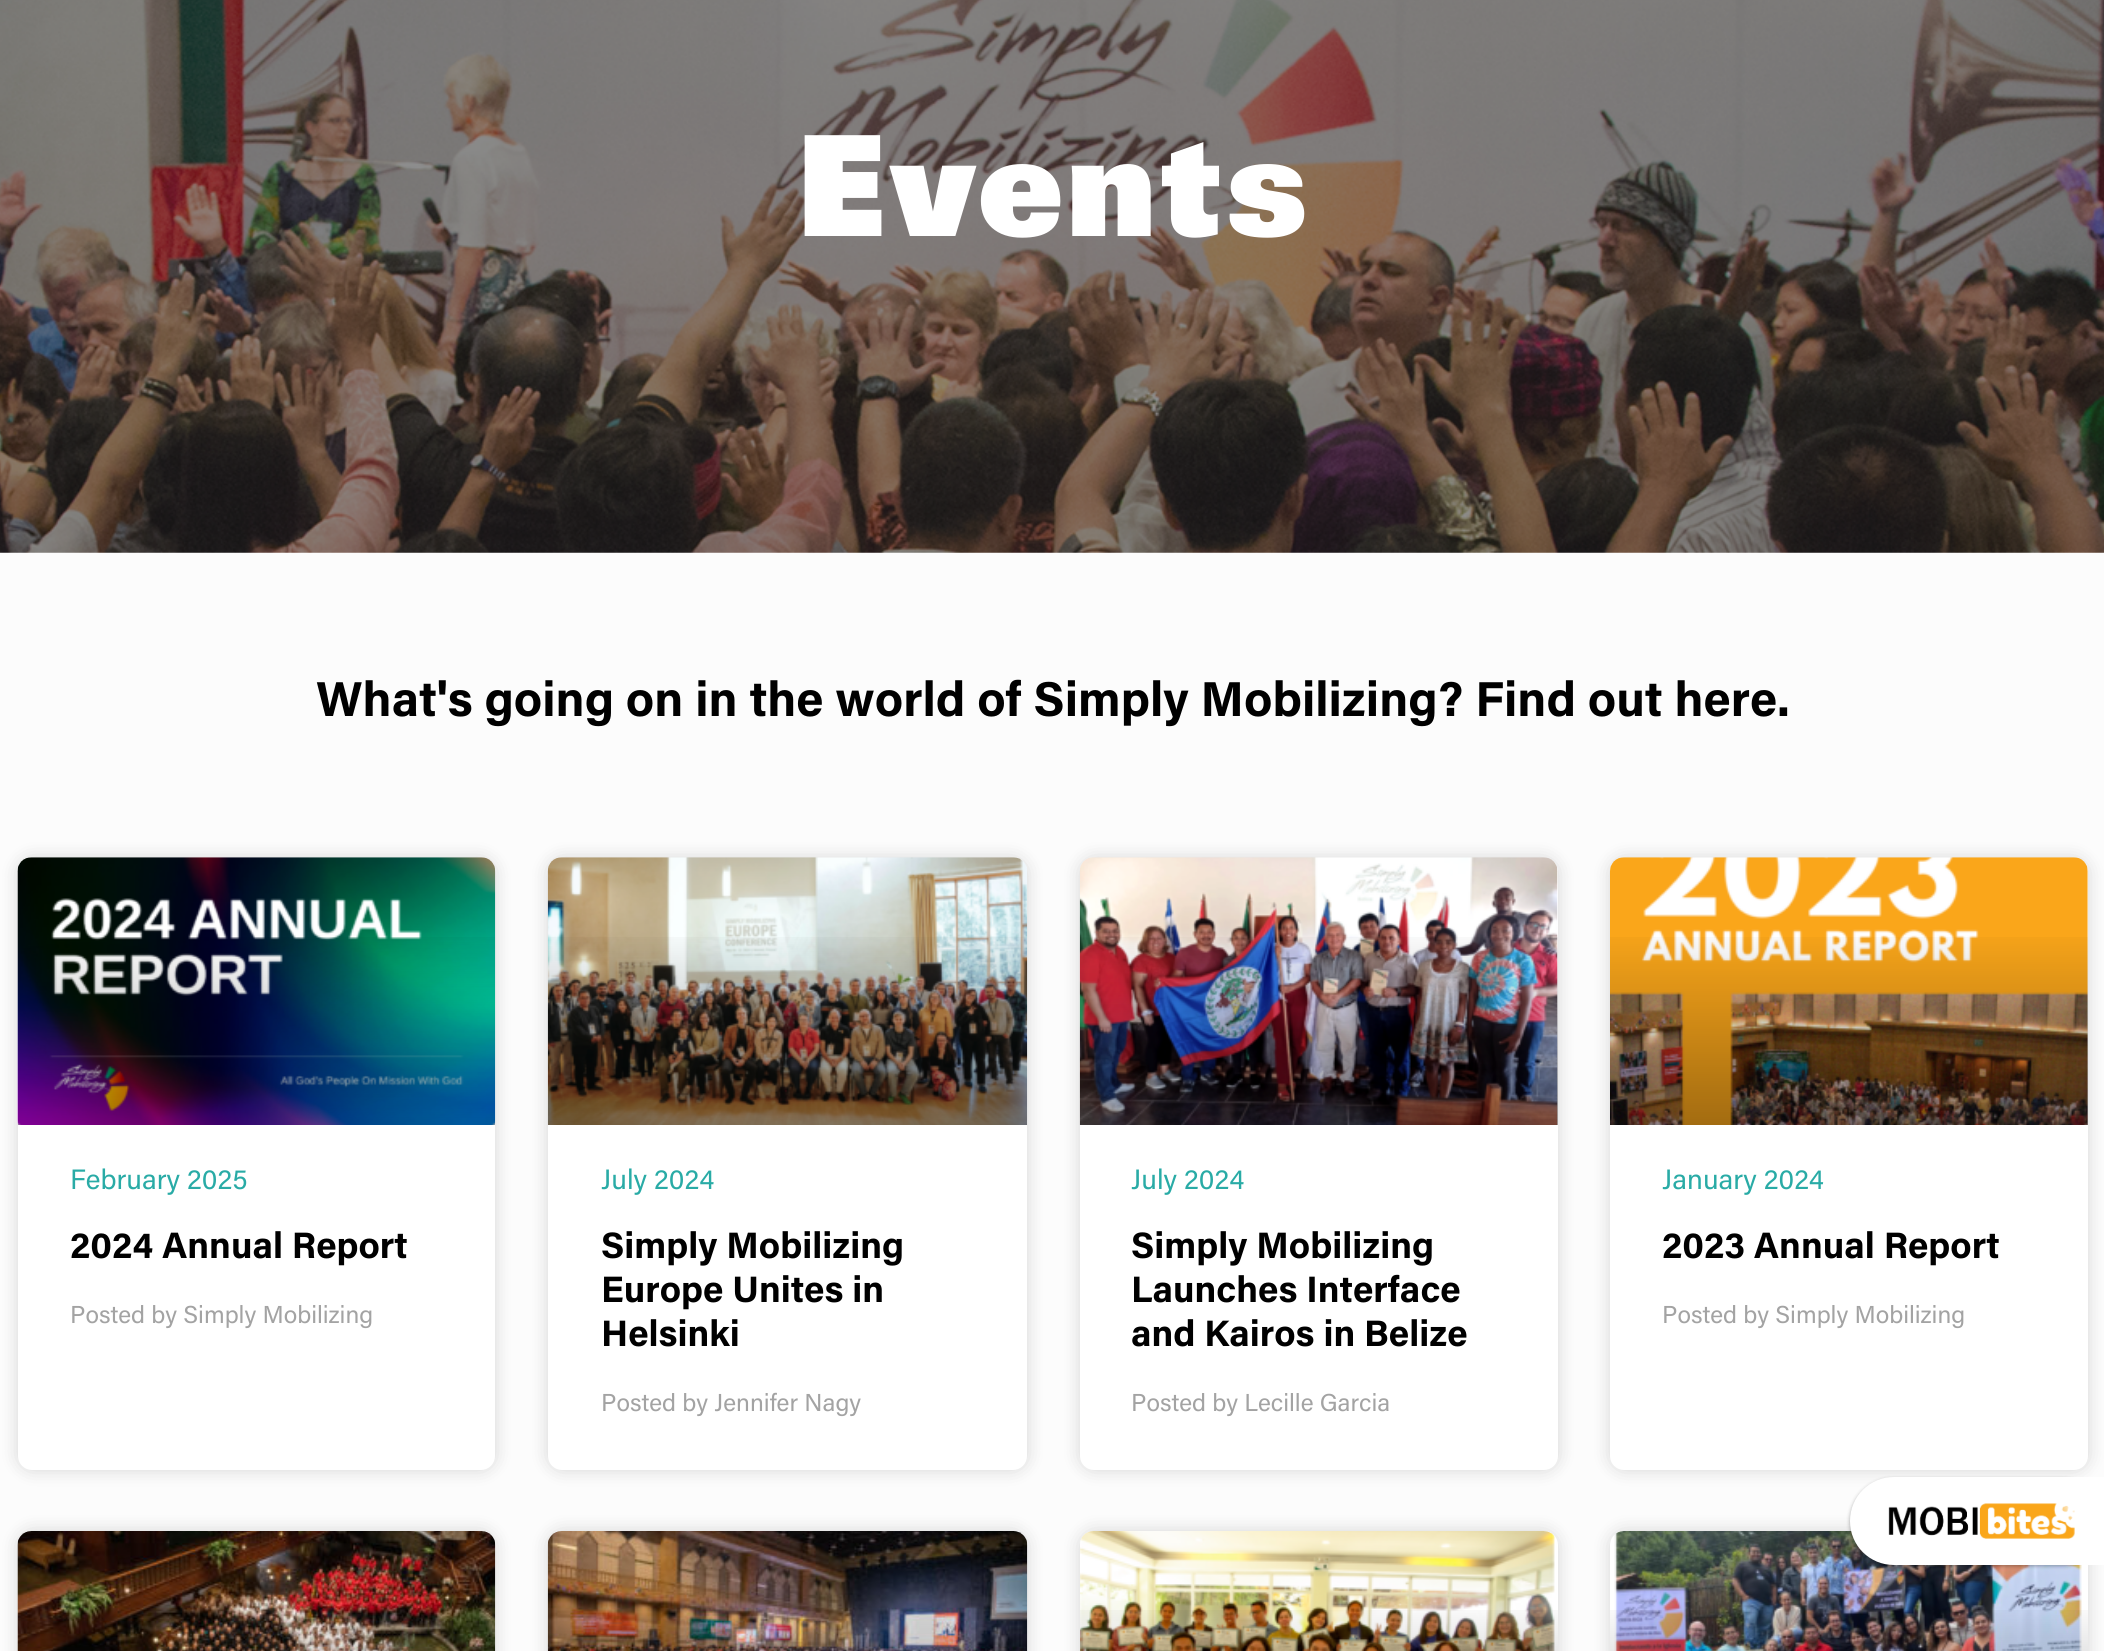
import math
import cairocffi as cairo

surface = cairo.ImageSurface(cairo.FORMAT_RGB24, 2104, 1651)
ctx = cairo.Context(surface)
options = cairo.FontOptions()
options.set_hint_metrics(cairo.HINT_METRICS_OFF)
options.set_hint_style(cairo.HINT_STYLE_NONE)
ctx.set_font_options(options)
ctx.set_miter_limit(4)


def rgb(r, g, b):
    ctx.set_source_rgb(r / 255, g / 255, b / 255)


def face(family, size, italic, bold):
    ctx.select_font_face(family, cairo.FONT_SLANT_ITALIC if italic else cairo.FONT_SLANT_NORMAL, cairo.FONT_WEIGHT_BOLD if bold else cairo.FONT_WEIGHT_NORMAL)
    ctx.set_font_size(size)


def label(x, y, s):
    ctx.move_to(x, y)
    ctx.show_text(s)


def rect(x, y, w, h):
    ctx.rectangle(x, y, w, h)
    ctx.fill()


def rrect(x, y, w, h, r):
    ctx.new_sub_path()
    for i, (u, v) in enumerate([(x + w - r, y + h - r), (x + r, y + h - r), (x + r, y + r), (x + w - r, y + r)]):
        ctx.arc(u, v, r, i * math.pi / 2, (i + 1) * math.pi / 2)
    ctx.close_path()


def soft_shadow(x, y, w, h, r, blur, alpha):
    ctx.push_group_with_content(cairo.CONTENT_ALPHA)
    ctx.set_operator(cairo.OPERATOR_SOURCE)
    for i in range(15, -16, -2):
        e = blur * i / 6
        if min(w, h) + 2 * e > 0:
            ctx.set_source_rgba(0, 0, 0, alpha * math.erfc((i - 1) / 8.5) / 2)
            rrect(x - e, y - e, w + 2 * e, h + 2 * e, max(0, min(r + e + blur * .6, min(w, h) / 2 + e)))
            ctx.fill()
    ctx.mask(ctx.pop_group())


def image(path, x, y, w, h):
    ctx.save()
    ctx.set_source_surface(cairo.ImageSurface.create_from_png(path), x, y)
    ctx.rectangle(x, y, w, h)
    ctx.fill()
    ctx.restore()


rgb(255, 255, 255)
ctx.paint()
image('image0.png', 0, 0, 2104, 553)
face('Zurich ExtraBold', 140, 0, 0)
rgb(255, 255, 255)
label(795, 236, 'Events')
rgb(252, 252, 252)
rect(0, 553, 2104, 1098)
face('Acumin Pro', 49, 0, 1)
rgb(0, 0, 0)
label(316, 716, 'What\'s going on in the world of Simply Mobilizing? Find out here.')
rgb(0, 0, 0)
soft_shadow(18, 858, 477, 612, 14, 9, 0.15)
rgb(255, 255, 255)
rrect(18, 858, 477, 612, 14)
ctx.fill()
image('image1.png', 17, 857, 479, 268)
gradient = cairo.LinearGradient(256, 1125, 256, 858)
gradient.add_color_stop_rgba(0, 0, 0, 0, 0.35)
gradient.add_color_stop_rgba(0.75, 0, 0, 0, 0)
ctx.set_source(gradient)
rect(18, 937, 477, 188)
face('Acumin Pro', 28, 0, 0)
rgb(41, 171, 166)
label(70, 1189, 'February 2025')
face('Acumin Pro', 36.75, 0, 1)
rgb(0, 0, 0)
label(70, 1258, '2024 Annual Report')
face('Acumin Pro', 24.5, 0, 0)
rgb(163, 163, 163)
label(70, 1323, 'Posted by Simply Mobilizing')
rgb(0, 0, 0)
soft_shadow(548, 858, 479, 612, 14, 9, 0.15)
rgb(255, 255, 255)
rrect(548, 858, 479, 612, 14)
ctx.fill()
image('image2.png', 547, 857, 481, 268)
gradient = cairo.LinearGradient(788, 1125, 788, 858)
gradient.add_color_stop_rgba(0, 0, 0, 0, 0.35)
gradient.add_color_stop_rgba(0.75, 0, 0, 0, 0)
ctx.set_source(gradient)
rect(548, 937, 479, 188)
face('Acumin Pro', 28, 0, 0)
rgb(41, 171, 166)
label(601, 1189, 'July 2024')
face('Acumin Pro', 36.75, 0, 1)
rgb(0, 0, 0)
label(601, 1258, 'Simply Mobilizing')
label(601, 1302, 'Europe Unites in')
label(601, 1346, 'Helsinki')
face('Acumin Pro', 24.5, 0, 0)
rgb(163, 163, 163)
label(601, 1411, 'Posted by Jennifer Nagy')
rgb(0, 0, 0)
soft_shadow(1080, 858, 478, 612, 14, 9, 0.15)
rgb(255, 255, 255)
rrect(1080, 858, 478, 612, 14)
ctx.fill()
image('image3.png', 1079, 857, 479, 268)
gradient = cairo.LinearGradient(1319, 1125, 1319, 858)
gradient.add_color_stop_rgba(0, 0, 0, 0, 0.35)
gradient.add_color_stop_rgba(0.75, 0, 0, 0, 0)
ctx.set_source(gradient)
rect(1080, 937, 478, 188)
face('Acumin Pro', 28, 0, 0)
rgb(41, 171, 166)
label(1131, 1189, 'July 2024')
face('Acumin Pro', 36.75, 0, 1)
rgb(0, 0, 0)
label(1131, 1258, 'Simply Mobilizing')
label(1131, 1302, 'Launches Interface')
label(1131, 1346, 'and Kairos in Belize')
face('Acumin Pro', 24.5, 0, 0)
rgb(163, 163, 163)
label(1131, 1411, 'Posted by Lecille Garcia')
rgb(0, 0, 0)
soft_shadow(1610, 858, 478, 612, 14, 9, 0.15)
rgb(255, 255, 255)
rrect(1610, 858, 478, 612, 14)
ctx.fill()
image('image4.png', 1610, 857, 478, 268)
gradient = cairo.LinearGradient(1849, 1125, 1849, 858)
gradient.add_color_stop_rgba(0, 0, 0, 0, 0.35)
gradient.add_color_stop_rgba(0.75, 0, 0, 0, 0)
ctx.set_source(gradient)
rect(1610, 937, 478, 188)
face('Acumin Pro', 28, 0, 0)
rgb(41, 171, 166)
label(1662, 1189, 'January 2024')
face('Acumin Pro', 36.75, 0, 1)
rgb(0, 0, 0)
label(1662, 1258, '2023 Annual Report')
face('Acumin Pro', 24.5, 0, 0)
rgb(163, 163, 163)
label(1662, 1323, 'Posted by Simply Mobilizing')
rgb(0, 0, 0)
soft_shadow(18, 1531, 477, 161, 14, 9, 0.15)
image('image5.png', 17, 1531, 479, 120)
gradient = cairo.LinearGradient(256, 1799, 256, 1531)
gradient.add_color_stop_rgba(0, 0, 0, 0, 0.35)
gradient.add_color_stop_rgba(0.75, 0, 0, 0, 0)
ctx.set_source(gradient)
rect(18, 1610, 477, 41)
rgb(0, 0, 0)
soft_shadow(548, 1531, 479, 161, 14, 9, 0.15)
image('image6.png', 547, 1531, 481, 120)
gradient = cairo.LinearGradient(788, 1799, 788, 1531)
gradient.add_color_stop_rgba(0, 0, 0, 0, 0.35)
gradient.add_color_stop_rgba(0.75, 0, 0, 0, 0)
ctx.set_source(gradient)
rect(548, 1610, 479, 41)
rgb(0, 0, 0)
soft_shadow(1080, 1531, 478, 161, 14, 9, 0.15)
rgb(255, 255, 255)
rrect(1080, 1531, 478, 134, 14)
ctx.fill()
image('image7.png', 1080, 1531, 475, 120)
gradient = cairo.LinearGradient(1319, 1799, 1319, 1531)
gradient.add_color_stop_rgba(0, 0, 0, 0, 0.35)
gradient.add_color_stop_rgba(0.75, 0, 0, 0, 0)
ctx.set_source(gradient)
rect(1080, 1610, 478, 41)
rgb(0, 0, 0)
soft_shadow(1610, 1531, 478, 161, 14, 9, 0.15)
rgb(255, 255, 255)
rrect(1610, 1531, 478, 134, 14)
ctx.fill()
image('image8.png', 1614, 1531, 468, 120)
gradient = cairo.LinearGradient(1849, 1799, 1849, 1531)
gradient.add_color_stop_rgba(0, 0, 0, 0, 0.35)
gradient.add_color_stop_rgba(0.75, 0, 0, 0, 0)
ctx.set_source(gradient)
rect(1610, 1610, 478, 41)
rgb(0, 0, 0)
soft_shadow(1850, 1479, 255, 87, 43.5, 2, 0.34)
rgb(255, 255, 255)
ctx.new_path()
ctx.move_to(1894, 1477)
ctx.line_to(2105, 1477)
ctx.line_to(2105, 1565)
ctx.line_to(1894, 1565)
ctx.curve_to(1869.5, 1565, 1850, 1545.5, 1850, 1521)
ctx.curve_to(1850, 1496.5, 1869.5, 1477, 1894, 1477)
ctx.close_path()
ctx.fill()
image('image9.png', 1888, 1503, 187, 36)
surface.write_to_png('render.png')
